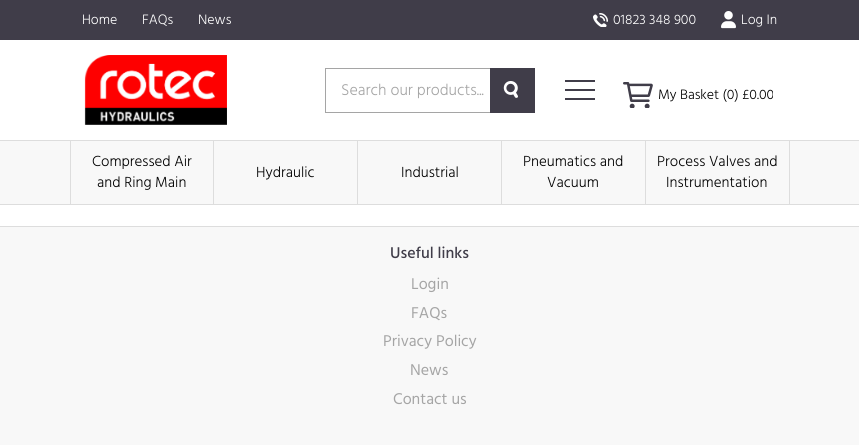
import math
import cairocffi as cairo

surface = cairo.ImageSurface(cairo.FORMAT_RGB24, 859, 445)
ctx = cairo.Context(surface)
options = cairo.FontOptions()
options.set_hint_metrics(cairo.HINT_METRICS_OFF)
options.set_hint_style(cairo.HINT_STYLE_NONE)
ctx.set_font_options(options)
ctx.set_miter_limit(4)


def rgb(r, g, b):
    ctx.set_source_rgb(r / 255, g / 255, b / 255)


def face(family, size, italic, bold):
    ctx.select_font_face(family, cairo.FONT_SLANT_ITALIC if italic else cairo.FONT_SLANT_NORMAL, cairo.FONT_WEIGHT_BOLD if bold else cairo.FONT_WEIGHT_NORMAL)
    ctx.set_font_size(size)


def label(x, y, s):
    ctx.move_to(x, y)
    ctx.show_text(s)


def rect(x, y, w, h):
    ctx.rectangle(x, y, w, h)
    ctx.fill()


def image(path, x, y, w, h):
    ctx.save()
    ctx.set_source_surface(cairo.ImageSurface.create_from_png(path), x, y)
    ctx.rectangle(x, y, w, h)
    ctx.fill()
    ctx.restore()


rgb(255, 255, 255)
ctx.paint()
rgb(64, 61, 73)
rect(0, 0, 859, 40)
face('Hind Light', 14, 0, 0)
rgb(255, 255, 255)
label(82, 24, 'Home')
label(142, 24, 'FAQs')
label(198, 24, 'News')
image('image0.png', 593, 13, 15, 14)
label(613, 24, '01823 348 900')
image('image1.png', 721, 11, 15, 18)
label(741, 24, 'Log In')
image('image2.png', 84, 55, 143, 70)
ctx.rectangle(325.5, 68.5, 209, 44)
rgb(165, 165, 165)
ctx.set_line_width(1)
ctx.stroke()
face('Hind Light', 16, 0, 0)
label(341, 95, 'Search our products...')
rgb(64, 61, 73)
rect(490, 68, 45, 45)
image('image3.png', 503, 81, 15, 17)
rect(565, 80, 30, 2)
rect(565, 89, 30, 2)
rect(565, 98, 30, 2)
image('image4.png', 623, 82, 30, 26)
face('Hind Light', 14, 0, 0)
rgb(0, 0, 0)
label(658, 99, 'My Basket (0) £0.00')
rgb(248, 248, 248)
rect(0, 141, 859, 63)
rgb(221, 221, 221)
rect(0, 140, 859, 1)
rect(0, 204, 859, 1)
rect(789, 141, 1, 63)
rect(70, 141, 1, 63)
rect(213, 141, 1, 63)
face('Hind Light', 15, 0, 0)
rgb(0, 0, 0)
label(92, 166, 'Compressed Air')
label(97, 187, 'and Ring Main')
rgb(221, 221, 221)
rect(357, 141, 1, 63)
rgb(0, 0, 0)
label(256, 177, 'Hydraulic')
rgb(221, 221, 221)
rect(501, 141, 1, 63)
rgb(0, 0, 0)
label(401, 177, 'Industrial')
rgb(221, 221, 221)
rect(645, 141, 1, 63)
rgb(0, 0, 0)
label(523, 166, 'Pneumatics and')
label(547, 187, 'Vacuum')
label(657, 166, 'Process Valves and')
label(666, 187, 'Instrumentation')
rgb(248, 248, 248)
rect(0, 227, 859, 218)
rgb(221, 221, 221)
rect(0, 226, 859, 1)
face('Hind Medium', 16, 0, 0)
rgb(64, 61, 73)
label(390, 258, 'Useful links')
face('Hind', 16, 0, 0)
rgb(165, 165, 165)
label(411, 289, 'Login')
label(411, 318, 'FAQs')
label(383, 346, 'Privacy Policy')
label(410, 375, 'News')
label(393, 404, 'Contact us')
surface.write_to_png('render.png')
